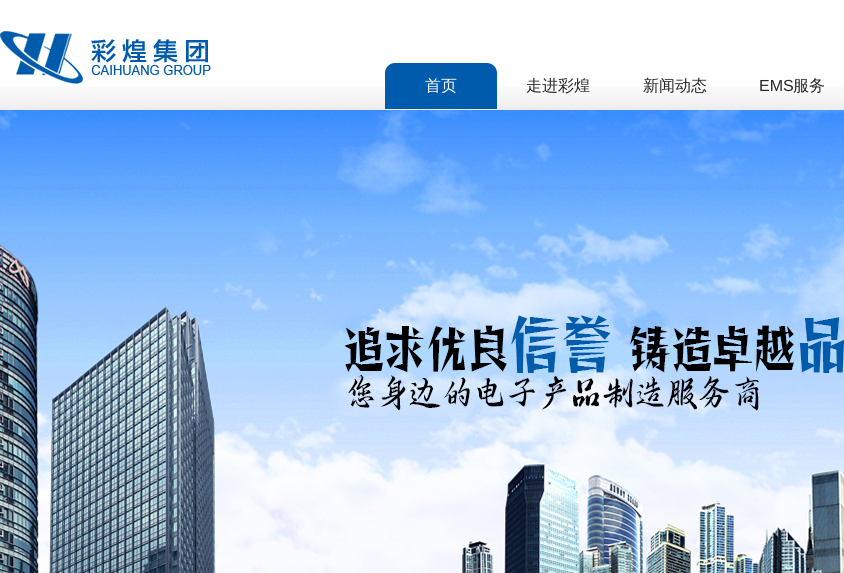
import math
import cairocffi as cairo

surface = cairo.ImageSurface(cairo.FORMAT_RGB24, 844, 573)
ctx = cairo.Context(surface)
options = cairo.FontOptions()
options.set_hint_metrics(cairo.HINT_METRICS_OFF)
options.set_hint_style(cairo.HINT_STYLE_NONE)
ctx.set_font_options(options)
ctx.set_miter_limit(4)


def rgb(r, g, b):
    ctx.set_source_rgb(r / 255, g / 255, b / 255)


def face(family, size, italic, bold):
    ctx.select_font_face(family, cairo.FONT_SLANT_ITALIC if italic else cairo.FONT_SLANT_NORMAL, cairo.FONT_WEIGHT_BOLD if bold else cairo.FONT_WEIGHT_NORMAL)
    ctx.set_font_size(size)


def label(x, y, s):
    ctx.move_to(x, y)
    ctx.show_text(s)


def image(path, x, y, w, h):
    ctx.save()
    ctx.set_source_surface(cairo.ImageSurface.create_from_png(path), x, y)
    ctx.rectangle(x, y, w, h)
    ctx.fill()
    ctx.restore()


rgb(255, 255, 255)
ctx.paint()
image('image0.png', 0, 86, 844, 24)
image('image1.png', 0, 31, 211, 53)
rgb(0, 91, 172)
ctx.new_path()
ctx.move_to(395, 63)
ctx.line_to(487, 63)
ctx.curve_to(492.5, 63, 497, 67.5, 497, 73)
ctx.line_to(497, 109)
ctx.line_to(385, 109)
ctx.line_to(385, 73)
ctx.curve_to(385, 67.5, 389.5, 63, 395, 63)
ctx.close_path()
ctx.fill()
face('WenQuanYi Zen Hei Medium', 16, 0, 0)
rgb(255, 255, 255)
label(425, 91, '首页')
rgb(39, 39, 39)
label(526, 91, '走进彩煌')
label(643, 91, '新闻动态')
face('Liberation Sans', 16, 0, 0)
label(759, 91, 'EMS')
face('WenQuanYi Zen Hei Medium', 16, 0, 0)
label(793, 91, '服务')
image('image2.png', 0, 110, 844, 463)
surface.write_to_png('render.png')
